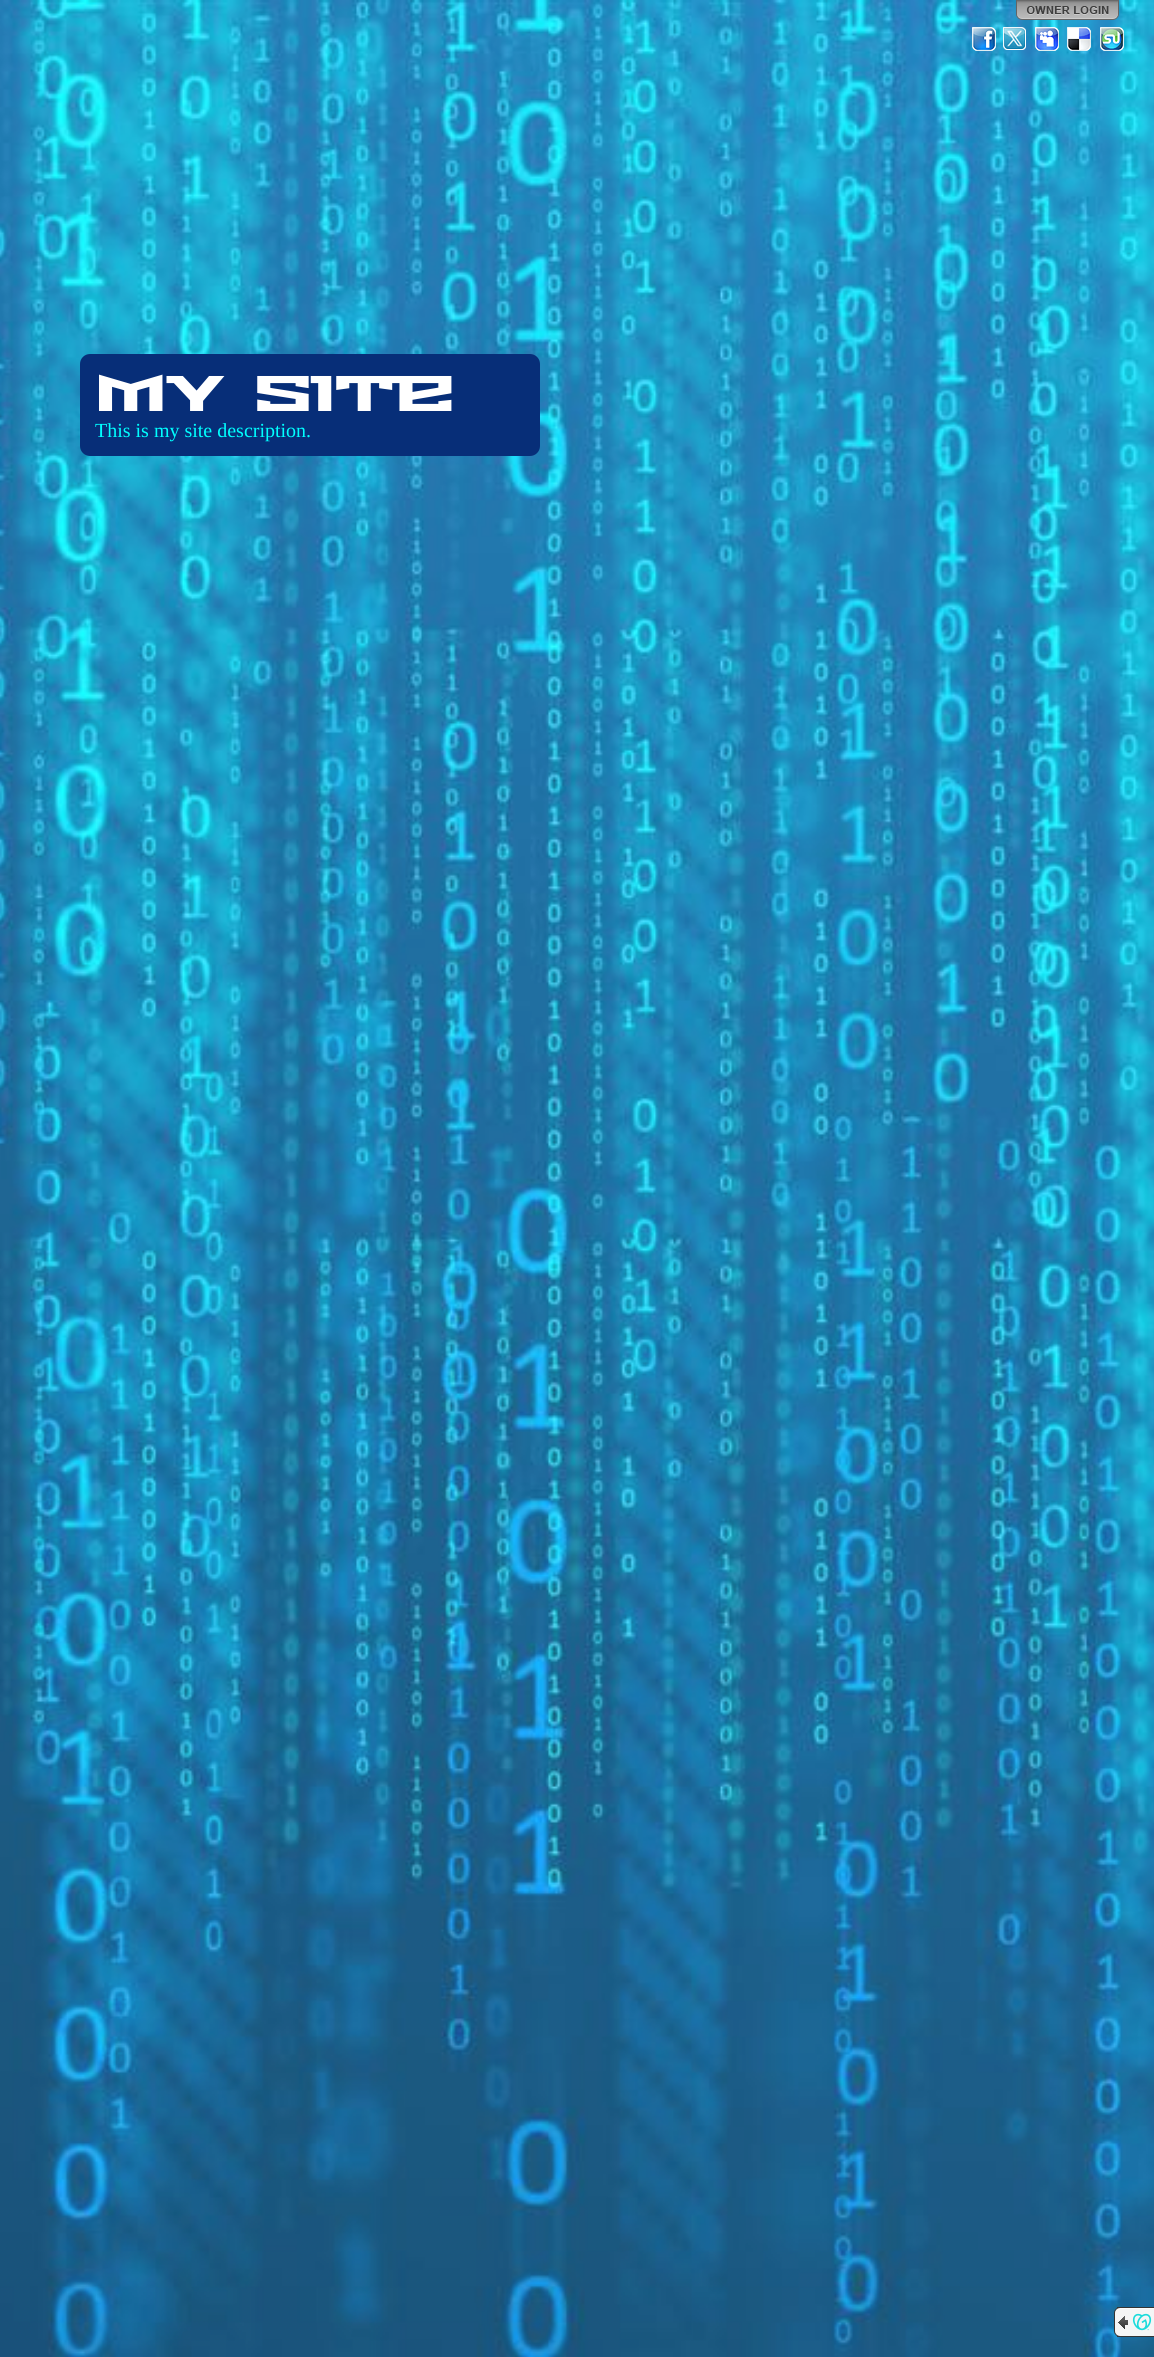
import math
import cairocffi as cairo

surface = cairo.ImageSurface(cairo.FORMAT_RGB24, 1154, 2357)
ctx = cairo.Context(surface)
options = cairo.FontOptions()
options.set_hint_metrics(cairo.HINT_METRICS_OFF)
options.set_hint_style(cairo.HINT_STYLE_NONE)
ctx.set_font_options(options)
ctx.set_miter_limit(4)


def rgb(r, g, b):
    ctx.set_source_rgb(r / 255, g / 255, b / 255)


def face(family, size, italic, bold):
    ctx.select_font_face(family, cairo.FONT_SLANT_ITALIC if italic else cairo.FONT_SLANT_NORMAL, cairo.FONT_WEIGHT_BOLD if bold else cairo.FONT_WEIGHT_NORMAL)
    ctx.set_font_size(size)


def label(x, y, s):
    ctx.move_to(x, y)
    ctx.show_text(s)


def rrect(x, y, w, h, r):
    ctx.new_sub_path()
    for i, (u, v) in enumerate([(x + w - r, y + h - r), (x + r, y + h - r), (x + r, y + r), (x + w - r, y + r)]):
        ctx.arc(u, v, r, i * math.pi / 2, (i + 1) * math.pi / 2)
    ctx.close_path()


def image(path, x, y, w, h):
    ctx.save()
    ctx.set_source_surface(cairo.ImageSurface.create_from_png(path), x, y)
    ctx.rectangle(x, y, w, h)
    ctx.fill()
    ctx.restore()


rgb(255, 255, 255)
ctx.paint()
image('image0.png', 0, 0, 1154, 2357)
image('image1.png', 1016, 0, 103, 20)
image('image2.png', 972, 27, 24, 24)
image('image3.png', 1003, 27, 23, 23)
image('image4.png', 1035, 27, 24, 24)
image('image5.png', 1067, 27, 24, 24)
image('image6.png', 1100, 27, 24, 24)
rgb(7, 46, 120)
rrect(80, 354, 460, 102, 10)
ctx.fill()
face('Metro', 50, 0, 0)
rgb(255, 255, 255)
label(95, 411, 'My Site')
face('Liberation Serif', 20, 0, 0)
rgb(0, 255, 255)
label(95, 437, 'This is my site description.')
image('image7.png', 1117, 2307, 37, 30)
image('image8.png', 1114, 2308, 14, 28)
image('image9.png', 1132, 2313, 20, 18)
surface.write_to_png('render.png')
